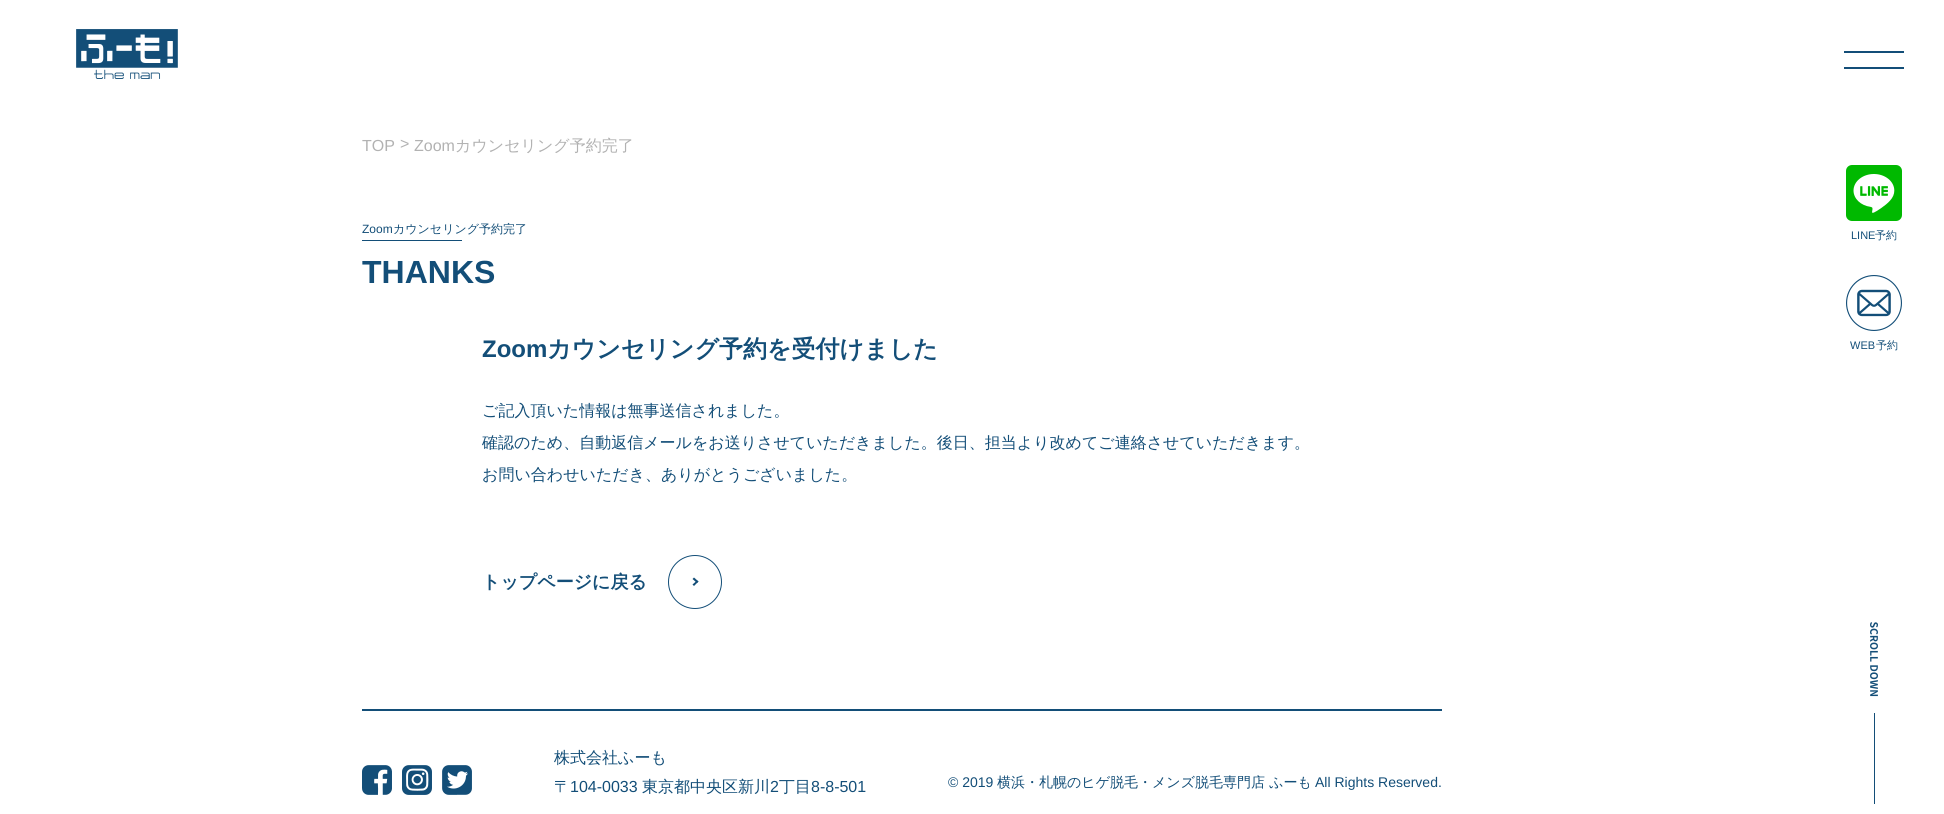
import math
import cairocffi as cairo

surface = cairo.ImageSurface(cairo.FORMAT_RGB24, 1944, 814)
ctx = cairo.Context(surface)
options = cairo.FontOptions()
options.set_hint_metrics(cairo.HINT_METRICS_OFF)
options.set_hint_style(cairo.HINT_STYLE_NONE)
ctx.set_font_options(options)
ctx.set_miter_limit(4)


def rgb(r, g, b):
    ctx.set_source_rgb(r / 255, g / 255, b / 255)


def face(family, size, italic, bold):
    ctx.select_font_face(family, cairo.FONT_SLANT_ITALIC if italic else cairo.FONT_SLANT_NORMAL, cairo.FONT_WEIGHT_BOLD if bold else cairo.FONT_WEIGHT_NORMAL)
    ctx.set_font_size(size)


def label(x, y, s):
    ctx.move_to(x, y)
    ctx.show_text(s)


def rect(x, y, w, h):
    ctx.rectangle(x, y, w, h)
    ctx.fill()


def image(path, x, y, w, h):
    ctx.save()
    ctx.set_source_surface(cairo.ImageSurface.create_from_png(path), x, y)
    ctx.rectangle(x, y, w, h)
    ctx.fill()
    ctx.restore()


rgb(255, 255, 255)
ctx.paint()
image('image0.png', 76, 29, 102, 50)
face('Liberation Sans', 16, 0, 0)
rgb(178, 178, 178)
label(362, 151, 'TOP')
label(400, 149, '>')
label(414, 151, 'Zoom')
face('WenQuanYi Zen Hei Medium', 16, 0, 0)
label(455, 151, 'カウンセリング予約完了')
face('Liberation Sans', 12, 0, 0)
rgb(19, 78, 120)
label(362, 233, 'Zoom')
face('WenQuanYi Zen Hei Medium', 12, 0, 0)
label(393, 233, 'カウンセリング予約完了')
rect(362, 240, 100, 1)
face('Liberation Sans', 32, 0, 1)
label(362, 283, 'THANKS')
face('Liberation Sans', 24, 0, 1)
label(482, 357, 'Zoom')
face('WenQuanYi Zen Hei', 24, 0, 1)
label(547, 357, 'カウンセリング予約を受付けました')
face('WenQuanYi Zen Hei Medium', 16, 0, 0)
label(482, 416, 'ご記入頂いた情報は無事送信されました。')
label(482, 448, '確認のため、自動返信メールをお送りさせていただきました。後日、担当より改めてご連絡させていただきます。')
label(482, 480, 'お問い合わせいただき、ありがとうございました。')
face('WenQuanYi Zen Hei', 18, 0, 1)
label(482, 588, 'トップページに戻る')
ctx.new_path()
ctx.arc(695, 582, 26.5, 0, 2 * math.pi)
ctx.set_line_width(1)
ctx.stroke()
ctx.new_path()
ctx.move_to(694, 577.5)
ctx.line_to(698.5, 581.5)
ctx.line_to(697, 583)
ctx.line_to(692.5, 579)
ctx.close_path()
ctx.fill()
ctx.new_path()
ctx.move_to(697, 580.5)
ctx.line_to(698.5, 581.5)
ctx.line_to(694, 586)
ctx.line_to(692.5, 584.5)
ctx.close_path()
ctx.fill()
rect(362, 709, 1080, 2)
image('image1.png', 362, 765, 30, 30)
image('image2.png', 402, 765, 30, 30)
image('image3.png', 442, 765, 30, 30)
face('WenQuanYi Zen Hei Medium', 16, 0, 0)
label(554, 763, '株式会社ふーも')
label(554, 792, '〒')
face('Liberation Sans', 16, 0, 0)
label(570, 792, '104-0033')
face('WenQuanYi Zen Hei Medium', 16, 0, 0)
label(642, 792, '東京都中央区新川')
face('Liberation Sans', 16, 0, 0)
label(770, 792, '2')
face('WenQuanYi Zen Hei Medium', 16, 0, 0)
label(779, 792, '丁目')
face('Liberation Sans', 16, 0, 0)
label(811, 792, '8-8-501')
face('Liberation Sans', 14, 0, 0)
label(948, 787, '© 2019')
face('WenQuanYi Zen Hei Medium', 14, 0, 0)
label(997, 787, '横浜・札幌のヒゲ脱毛・メンズ脱毛専門店 ふーも')
face('Liberation Sans', 14, 0, 0)
label(1315, 787, 'All Rights Reserved.')
rect(1844, 51, 60, 2)
rect(1844, 67, 60, 2)
image('image4.png', 1846, 165, 56, 56)
face('Liberation Sans', 11, 0, 0)
label(1851, 239, 'LINE')
face('WenQuanYi Zen Hei Medium', 11, 0, 0)
label(1875, 239, '予約')
image('image5.png', 1846, 275, 56, 56)
face('Liberation Sans', 11, 0, 0)
label(1850, 349, 'WEB')
face('WenQuanYi Zen Hei Medium', 11, 0, 0)
label(1876, 349, '予約')
image('image6.png', 1870, 622, 8, 182)
surface.write_to_png('render.png')
